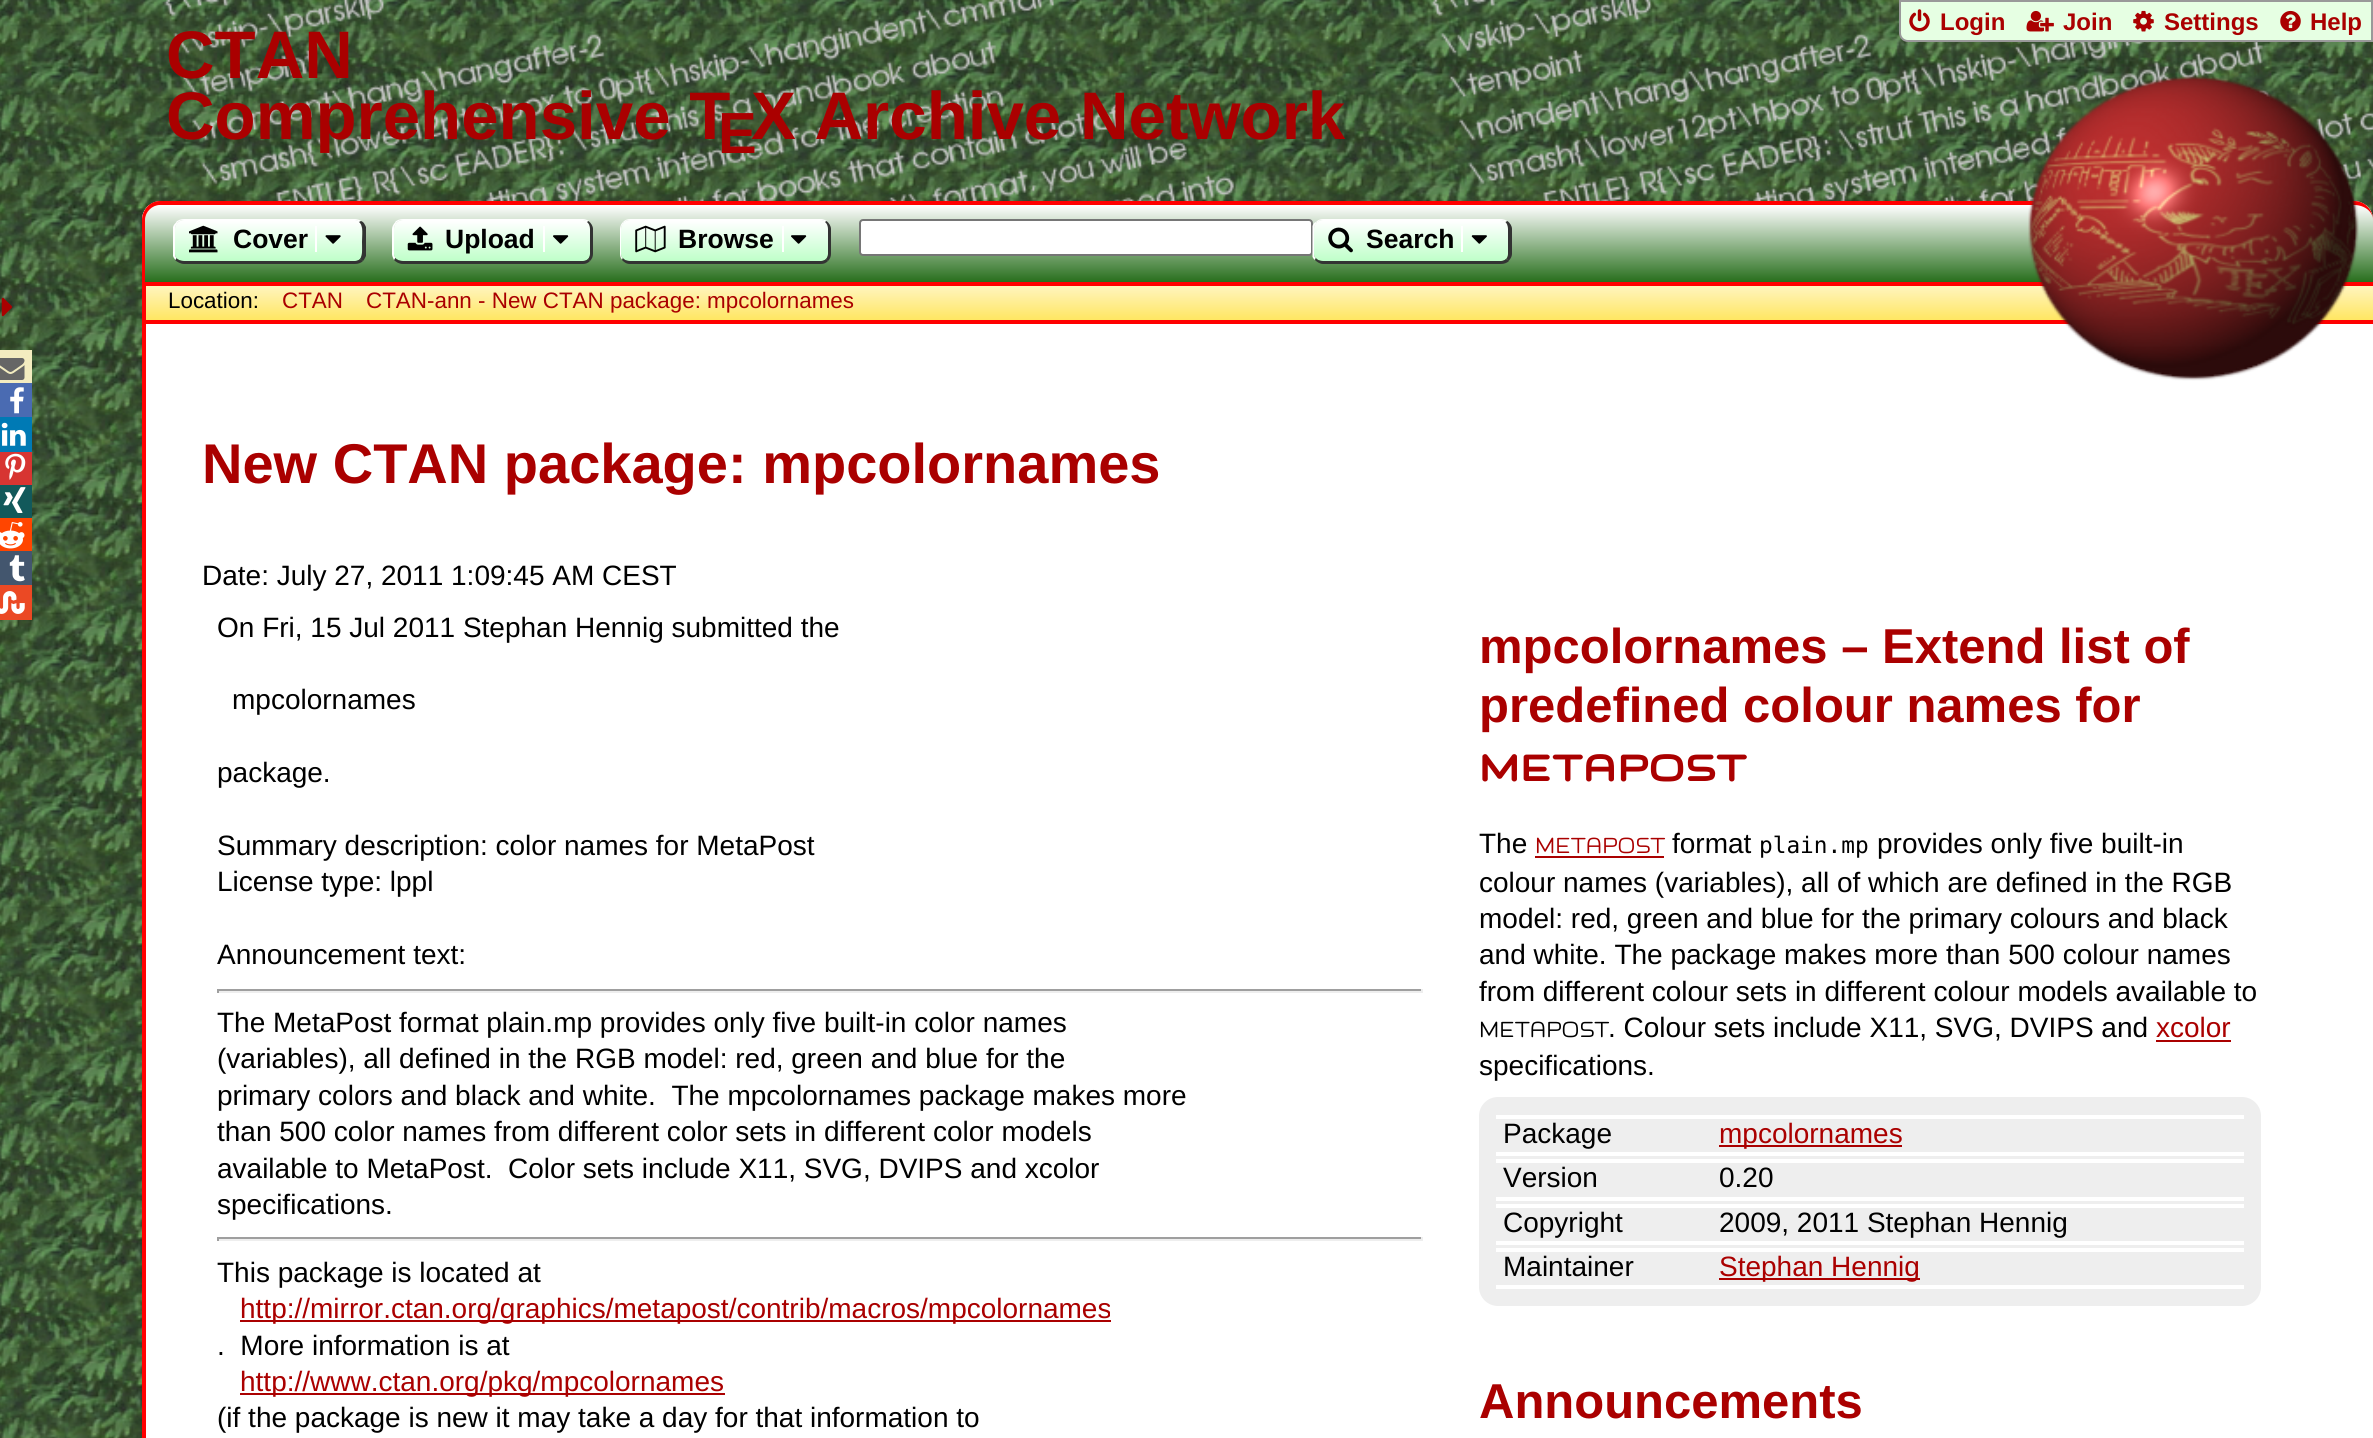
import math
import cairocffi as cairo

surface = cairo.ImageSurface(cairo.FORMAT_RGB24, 2373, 1438)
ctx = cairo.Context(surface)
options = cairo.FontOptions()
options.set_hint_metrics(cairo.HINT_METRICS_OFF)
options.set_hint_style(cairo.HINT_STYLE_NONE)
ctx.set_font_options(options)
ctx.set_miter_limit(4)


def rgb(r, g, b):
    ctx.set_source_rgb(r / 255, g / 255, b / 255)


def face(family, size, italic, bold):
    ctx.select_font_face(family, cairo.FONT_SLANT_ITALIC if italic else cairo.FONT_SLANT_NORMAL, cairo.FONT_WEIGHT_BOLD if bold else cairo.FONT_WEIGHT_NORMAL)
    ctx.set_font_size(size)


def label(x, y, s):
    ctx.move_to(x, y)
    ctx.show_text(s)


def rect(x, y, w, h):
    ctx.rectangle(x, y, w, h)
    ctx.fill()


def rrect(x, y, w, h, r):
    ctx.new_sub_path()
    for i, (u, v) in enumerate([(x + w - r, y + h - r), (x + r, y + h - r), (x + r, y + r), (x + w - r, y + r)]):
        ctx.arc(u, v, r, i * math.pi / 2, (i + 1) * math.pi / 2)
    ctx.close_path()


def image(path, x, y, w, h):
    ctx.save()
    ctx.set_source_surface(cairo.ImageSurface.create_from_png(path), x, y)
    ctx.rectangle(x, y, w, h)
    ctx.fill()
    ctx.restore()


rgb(255, 255, 255)
ctx.paint()
image('image0.png', 0, 0, 2373, 1438)
image('image5.png', 164, 0, 2209, 201)
rgb(230, 255, 227)
ctx.new_path()
ctx.move_to(1900, 1)
ctx.line_to(2372, 1)
ctx.line_to(2372, 41)
ctx.line_to(1908, 41)
ctx.curve_to(1903.5, 41, 1900, 37.5, 1900, 33)
ctx.close_path()
ctx.fill_preserve()
rgb(153, 153, 153)
ctx.stroke()
image('image1.png', 1909, 9, 21, 23)
face('Liberation Sans', 24, 0, 1)
rgb(170, 0, 0)
label(1940, 30, 'Login')
image('image2.png', 2026, 10, 28, 22)
label(2063, 30, 'Join')
image('image3.png', 2133, 10, 21, 22)
label(2164, 30, 'Settings')
image('image4.png', 2280, 10, 21, 22)
label(2310, 30, 'Help')
face('Liberation Sans', 67.25, 0, 1)
label(166, 78, 'CTAN')
label(166, 139, 'Comprehensive T')
face('Liberation Sans', 58, 0, 1)
label(718, 153, 'E')
face('Liberation Sans', 67.25, 0, 1)
label(751, 139, 'X Archive Network')
rgb(255, 255, 255)
rrect(142, 201, 2231, 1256, 19)
ctx.fill()
ctx.save()
ctx.new_path()
ctx.move_to(161, 201)
ctx.line_to(2354, 201)
ctx.curve_to(2364.5, 201, 2373, 209.5, 2373, 220)
ctx.line_to(2373, 282)
ctx.line_to(142, 282)
ctx.line_to(142, 220)
ctx.curve_to(142, 209.5, 150.5, 201, 161, 201)
ctx.close_path()
ctx.clip()
gradient = cairo.LinearGradient(1259, 205, 1259, 282)
gradient.add_color_stop_rgba(0, 1, 1, 1, 1)
gradient.add_color_stop_rgba(1, 0.157, 0.435, 0.114, 1)
ctx.set_source(gradient)
rect(142, 205, 2231, 77)
ctx.restore()
rgb(255, 0, 0)
ctx.set_fill_rule(cairo.FILL_RULE_EVEN_ODD)
ctx.new_path()
ctx.move_to(160, 201)
ctx.line_to(2354, 201)
ctx.curve_to(2365, 201, 2373, 210, 2373, 220)
ctx.line_to(2373, 282)
ctx.line_to(142, 282)
ctx.line_to(142, 220)
ctx.curve_to(142, 210, 150, 201, 160, 201)
ctx.close_path()
ctx.move_to(160, 205)
ctx.line_to(2354, 205)
ctx.curve_to(2365, 205, 2373, 212, 2373, 220)
ctx.line_to(2373, 282)
ctx.line_to(145, 282)
ctx.line_to(145, 220)
ctx.curve_to(145, 212, 152, 205, 160, 205)
ctx.close_path()
ctx.fill()
gradient = cairo.LinearGradient(1259, 285, 1259, 320)
gradient.add_color_stop_rgba(0, 1, 0.961, 0.757, 1)
gradient.add_color_stop_rgba(1, 1, 0.902, 0.384, 1)
ctx.set_source(gradient)
rect(146, 286, 2227, 34)
rgb(255, 0, 0)
rect(142, 282, 2231, 4)
rect(142, 320, 2231, 4)
image('image6.png', 2028, 75, 331, 306)
image('image7.png', 1, 297, 12, 20)
rgb(243, 236, 192)
rect(0, 350, 32, 33)
image('image8.png', 0, 358, 25, 22)
rgb(74, 107, 178)
rect(0, 383, 32, 34)
image('image9.png', 10, 387, 14, 27)
rgb(0, 122, 181)
rect(0, 417, 32, 35)
image('image10.png', 1, 422, 25, 24)
rgb(215, 53, 50)
rect(0, 452, 32, 33)
image('image11.png', 5, 453, 21, 27)
rgb(18, 89, 91)
rect(0, 485, 32, 33)
image('image12.png', 3, 487, 23, 26)
rgb(255, 69, 0)
rect(0, 518, 32, 33)
image('image13.png', 0, 522, 25, 27)
rgb(67, 86, 110)
rect(0, 551, 32, 34)
image('image14.png', 9, 555, 16, 27)
rgb(235, 73, 36)
rect(0, 585, 32, 35)
image('image15.png', 0, 591, 25, 23)
gradient = cairo.LinearGradient(269, 221, 269, 261)
gradient.add_color_stop_rgba(0, 1, 1, 1, 1)
gradient.add_color_stop_rgba(1, 0.749, 1, 0.788, 1)
ctx.set_source(gradient)
ctx.set_fill_rule(cairo.FILL_RULE_WINDING)
ctx.new_path()
ctx.move_to(184, 220)
ctx.line_to(355, 220)
ctx.curve_to(359, 220, 362, 224, 362, 229)
ctx.line_to(362, 254)
ctx.curve_to(362, 258, 359, 261, 355, 261)
ctx.line_to(184, 261)
ctx.curve_to(179, 261, 175, 258, 175, 254)
ctx.line_to(175, 229)
ctx.curve_to(175, 224, 179, 220, 184, 220)
ctx.close_path()
ctx.fill()
rgb(255, 255, 255)
ctx.new_path()
ctx.move_to(184, 219)
ctx.curve_to(181, 219, 178, 220, 176, 222)
ctx.line_to(177, 223)
ctx.curve_to(179, 221, 181, 220, 184, 220)
ctx.line_to(355, 220)
ctx.curve_to(357, 220, 358, 221, 359, 222)
ctx.line_to(361, 221)
ctx.curve_to(360, 220, 357, 219, 355, 219)
ctx.close_path()
ctx.fill()
rgb(51, 51, 51)
ctx.new_path()
ctx.move_to(361, 221)
ctx.curve_to(364, 222, 365, 225, 366, 227)
ctx.line_to(366, 256)
ctx.curve_to(365, 258, 364, 260, 363, 261)
ctx.line_to(360, 259)
ctx.curve_to(363, 255, 362, 246, 362, 242)
ctx.curve_to(362, 236, 364, 226, 359, 222)
ctx.close_path()
ctx.fill()
ctx.new_path()
ctx.move_to(363, 261)
ctx.curve_to(361, 263, 358, 264, 355, 264)
ctx.line_to(184, 264)
ctx.curve_to(181, 264, 177, 262, 175, 260)
ctx.line_to(176, 258)
ctx.curve_to(178, 260, 181, 261, 184, 261)
ctx.line_to(355, 261)
ctx.curve_to(357, 261, 359, 260, 360, 259)
ctx.close_path()
ctx.fill()
rgb(255, 255, 255)
ctx.new_path()
ctx.move_to(173, 227)
ctx.curve_to(173.5, 225, 175, 223.5, 176.5, 222)
ctx.line_to(177.5, 223)
ctx.curve_to(176, 224.5, 175, 226.5, 175, 229)
ctx.line_to(175, 254)
ctx.curve_to(175, 255.5, 175.5, 257, 176.5, 258)
ctx.line_to(175.5, 260)
ctx.curve_to(174.5, 259, 173.5, 257.5, 173, 256)
ctx.close_path()
ctx.fill()
image('image16.png', 189, 225, 29, 28)
face('Liberation Sans', 26.5, 0, 1)
rgb(0, 0, 0)
label(233, 248, 'Cover')
rgb(255, 255, 255)
rect(315, 226, 2, 26)
image('image17.png', 325, 235, 16, 9)
gradient = cairo.LinearGradient(492, 221, 492, 261)
gradient.add_color_stop_rgba(0, 1, 1, 1, 1)
gradient.add_color_stop_rgba(1, 0.749, 1, 0.788, 1)
ctx.set_source(gradient)
ctx.new_path()
ctx.move_to(403, 220)
ctx.line_to(583, 220)
ctx.curve_to(587, 220, 590, 224, 590, 229)
ctx.line_to(590, 254)
ctx.curve_to(590, 258, 587, 261, 583, 261)
ctx.line_to(403, 261)
ctx.curve_to(398, 261, 394, 258, 394, 254)
ctx.line_to(394, 229)
ctx.curve_to(394, 224, 398, 220, 403, 220)
ctx.close_path()
ctx.fill()
rgb(255, 255, 255)
ctx.new_path()
ctx.move_to(403, 219)
ctx.curve_to(400, 219, 397, 220, 395, 222)
ctx.line_to(396, 223)
ctx.curve_to(398, 221, 400, 220, 403, 220)
ctx.line_to(583, 220)
ctx.curve_to(585, 220, 586, 221, 587, 222)
ctx.line_to(589, 221)
ctx.curve_to(587, 220, 585, 219, 583, 219)
ctx.close_path()
ctx.fill()
rgb(51, 51, 51)
ctx.new_path()
ctx.move_to(588.5, 221)
ctx.curve_to(591, 223, 593, 226, 593, 229)
ctx.line_to(593, 254)
ctx.curve_to(593, 256.5, 592, 259, 590, 261)
ctx.line_to(588, 259)
ctx.curve_to(589, 258, 590, 256, 590, 254)
ctx.line_to(590, 229)
ctx.curve_to(590, 226, 589, 223.5, 587, 222)
ctx.close_path()
ctx.fill()
ctx.new_path()
ctx.move_to(590, 261)
ctx.curve_to(588, 263, 586, 264, 583, 264)
ctx.line_to(403, 264)
ctx.curve_to(399, 264, 396, 262, 394, 260)
ctx.line_to(395, 258)
ctx.curve_to(397, 260, 400, 261, 403, 261)
ctx.line_to(583, 261)
ctx.curve_to(585, 261, 587, 260, 588, 259)
ctx.close_path()
ctx.fill()
rgb(255, 255, 255)
ctx.new_path()
ctx.move_to(392, 229)
ctx.line_to(392, 254)
ctx.curve_to(392, 256, 393, 258, 394, 260)
ctx.line_to(395.5, 257.5)
ctx.curve_to(394.5, 256.5, 394, 255.5, 394, 254)
ctx.line_to(394, 229)
ctx.curve_to(394, 226.5, 395, 224.5, 396.5, 223)
ctx.line_to(395.5, 222)
ctx.curve_to(393.5, 224, 392, 226.5, 392, 229)
ctx.close_path()
ctx.fill()
image('image18.png', 407, 226, 26, 25)
rgb(0, 0, 0)
label(445, 248, 'Upload')
rgb(255, 255, 255)
rect(543, 226, 2, 26)
image('image19.png', 553, 235, 16, 9)
gradient = cairo.LinearGradient(725, 221, 725, 261)
gradient.add_color_stop_rgba(0, 1, 1, 1, 1)
gradient.add_color_stop_rgba(1, 0.749, 1, 0.788, 1)
ctx.set_source(gradient)
ctx.new_path()
ctx.move_to(630, 220)
ctx.line_to(821, 220)
ctx.curve_to(825, 220, 828, 224, 828, 229)
ctx.line_to(828, 254)
ctx.curve_to(828, 258, 825, 261, 821, 261)
ctx.line_to(630, 261)
ctx.curve_to(625, 261, 621, 258, 621, 254)
ctx.line_to(621, 229)
ctx.curve_to(621, 224, 625, 220, 630, 220)
ctx.close_path()
ctx.fill()
rgb(255, 255, 255)
ctx.new_path()
ctx.move_to(630, 219)
ctx.curve_to(627, 219, 625, 220, 623, 222)
ctx.line_to(624, 223)
ctx.curve_to(625, 221, 627, 220, 630, 220)
ctx.line_to(821, 220)
ctx.curve_to(823, 220, 824, 221, 825, 222)
ctx.line_to(827, 221)
ctx.curve_to(825, 220, 823, 219, 821, 219)
ctx.close_path()
ctx.fill()
rgb(51, 51, 51)
ctx.new_path()
ctx.move_to(826.5, 221)
ctx.curve_to(829, 223, 831, 226, 831, 229)
ctx.line_to(831, 254)
ctx.curve_to(831, 256.5, 830, 259, 828, 261)
ctx.line_to(826, 259)
ctx.curve_to(827, 258, 828, 256, 828, 254)
ctx.line_to(828, 229)
ctx.curve_to(828, 226, 827, 223.5, 825, 222)
ctx.close_path()
ctx.fill()
ctx.new_path()
ctx.move_to(828, 261)
ctx.curve_to(826, 263, 824, 264, 821, 264)
ctx.line_to(630, 264)
ctx.curve_to(626, 264, 624, 262, 622, 260)
ctx.line_to(623, 258)
ctx.curve_to(624, 260, 627, 261, 630, 261)
ctx.line_to(821, 261)
ctx.curve_to(823, 261, 825, 260, 826, 259)
ctx.close_path()
ctx.fill()
rgb(255, 255, 255)
ctx.new_path()
ctx.move_to(623, 222)
ctx.curve_to(621, 224, 620, 226.5, 620, 229)
ctx.line_to(620, 254)
ctx.curve_to(620, 256, 620.5, 258, 622, 259.5)
ctx.line_to(622.5, 258)
ctx.curve_to(621.5, 257, 621, 255.5, 621, 254)
ctx.line_to(621, 229)
ctx.curve_to(621, 226.5, 622, 224.5, 623.5, 223)
ctx.close_path()
ctx.fill()
image('image20.png', 635, 225, 31, 28)
rgb(0, 0, 0)
label(678, 248, 'Browse')
rgb(255, 255, 255)
rect(782, 226, 2, 26)
image('image19.png', 791, 235, 16, 9)
rrect(860, 220, 452, 35, 3)
ctx.fill_preserve()
rgb(118, 118, 118)
ctx.stroke()
gradient = cairo.LinearGradient(1411, 221, 1411, 261)
gradient.add_color_stop_rgba(0, 1, 1, 1, 1)
gradient.add_color_stop_rgba(1, 0.749, 1, 0.788, 1)
ctx.set_source(gradient)
ctx.new_path()
ctx.move_to(1323, 220)
ctx.line_to(1501, 220)
ctx.curve_to(1505, 220, 1508, 224, 1508, 229)
ctx.line_to(1508, 254)
ctx.curve_to(1508, 258, 1505, 261, 1501, 261)
ctx.line_to(1323, 261)
ctx.curve_to(1318, 261, 1314, 258, 1314, 254)
ctx.line_to(1314, 229)
ctx.curve_to(1314, 224, 1318, 220, 1323, 220)
ctx.close_path()
ctx.fill()
rgb(255, 255, 255)
ctx.new_path()
ctx.move_to(1323, 219)
ctx.curve_to(1320, 219, 1318, 220, 1316, 222)
ctx.line_to(1317, 223)
ctx.curve_to(1318, 221, 1320, 220, 1323, 220)
ctx.line_to(1501, 220)
ctx.curve_to(1503, 220, 1504, 221, 1505, 222)
ctx.line_to(1507, 221)
ctx.curve_to(1506, 220, 1503, 219, 1501, 219)
ctx.close_path()
ctx.fill()
rgb(51, 51, 51)
ctx.new_path()
ctx.move_to(1507.5, 221)
ctx.curve_to(1510, 223, 1512, 226, 1512, 229)
ctx.line_to(1512, 254)
ctx.curve_to(1512, 256.5, 1510.5, 259, 1508.5, 261)
ctx.line_to(1506.5, 258.5)
ctx.curve_to(1507.5, 257.5, 1508, 256, 1508, 254)
ctx.line_to(1508, 229)
ctx.curve_to(1508, 226, 1507, 223.5, 1505.5, 222)
ctx.close_path()
ctx.fill()
ctx.new_path()
ctx.move_to(1509, 261)
ctx.curve_to(1507, 263, 1504, 264, 1501, 264)
ctx.line_to(1323, 264)
ctx.curve_to(1320, 264, 1317, 262, 1315, 260)
ctx.line_to(1316, 258)
ctx.curve_to(1317, 260, 1320, 261, 1323, 261)
ctx.line_to(1501, 261)
ctx.curve_to(1503, 261, 1505, 260, 1506, 259)
ctx.close_path()
ctx.fill()
rgb(255, 255, 255)
ctx.new_path()
ctx.move_to(1312.5, 226)
ctx.curve_to(1313, 224.5, 1314, 223, 1315.5, 222)
ctx.line_to(1316.5, 223)
ctx.curve_to(1315, 224.5, 1314, 226.5, 1314, 229)
ctx.line_to(1314, 254)
ctx.curve_to(1314, 255.5, 1314.5, 257, 1315.5, 258)
ctx.line_to(1314.5, 260)
ctx.line_to(1312.5, 257)
ctx.close_path()
ctx.fill()
image('image21.png', 1328, 227, 25, 26)
rgb(0, 0, 0)
label(1366, 248, 'Search')
rgb(255, 255, 255)
rect(1461, 226, 2, 26)
image('image22.png', 1471, 235, 16, 9)
rgb(255, 0, 0)
rect(142, 282, 4, 1156)
face('Liberation Sans', 22.4, 0, 0)
rgb(0, 0, 0)
label(168, 308, 'Location:')
rgb(170, 0, 0)
label(282, 308, 'CTAN')
label(366, 308, 'CTAN-ann - New CTAN package: mpcolornames')
face('Liberation Sans', 56, 0, 1)
label(202, 483, 'New CTAN package: mpcolornames')
face('Liberation Sans', 28, 0, 0)
rgb(0, 0, 0)
label(202, 585, 'Date: July 27, 2011 1:09:45 AM CEST')
label(217, 637, 'On Fri, 15 Jul 2011 Stephan Hennig submitted the')
label(232, 709, 'mpcolornames')
label(217, 782, 'package.')
label(217, 855, 'Summary description: color names for MetaPost')
label(217, 891, 'License type: lppl')
label(217, 964, 'Announcement text:')
rgb(159, 159, 159)
rect(217, 989, 1206, 2)
rgb(238, 238, 238)
rect(1421, 989, 2, 4)
rect(217, 991, 1206, 2)
rgb(159, 159, 159)
rect(217, 989, 2, 4)
rgb(0, 0, 0)
label(217, 1032, 'The MetaPost format plain.mp provides only five built-in color names')
label(217, 1068, '(variables), all defined in the RGB model: red, green and blue for the')
label(217, 1105, 'primary colors and black and white.  The mpcolornames package makes more')
label(217, 1141, 'than 500 color names from different color sets in different color models')
label(217, 1178, 'available to MetaPost.  Color sets include X11, SVG, DVIPS and xcolor')
label(217, 1214, 'specifications.')
rgb(159, 159, 159)
rect(217, 1237, 1206, 2)
rgb(238, 238, 238)
rect(1421, 1237, 2, 4)
rect(217, 1239, 1206, 2)
rgb(159, 159, 159)
rect(217, 1237, 2, 4)
rgb(0, 0, 0)
label(217, 1282, 'This package is located at')
rgb(170, 0, 0)
rect(240, 1320, 871, 2)
label(240, 1318, 'http://mirror.ctan.org/graphics/metapost/contrib/macros/mpcolornames')
rgb(0, 0, 0)
label(217, 1355, '.  More information is at')
rgb(170, 0, 0)
rect(240, 1393, 485, 2)
label(240, 1391, 'http://www.ctan.org/pkg/mpcolornames')
rgb(0, 0, 0)
label(217, 1427, '(if the package is new it may take a day for that information to')
face('Liberation Sans', 49, 0, 1)
rgb(170, 0, 0)
label(1479, 663, 'mpcolornames – Extend list of')
label(1479, 722, 'predefined colour names for')
face('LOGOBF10', 44, 0, 1)
label(1479, 781, 'METAPOST')
face('Liberation Sans', 28, 0, 0)
rgb(0, 0, 0)
label(1479, 853, 'The')
face('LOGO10 Medium', 25.25, 0, 0)
rgb(170, 0, 0)
label(1535, 853, 'METAPOST')
rect(1535, 856, 129, 2)
face('Liberation Sans', 28, 0, 0)
rgb(0, 0, 0)
label(1672, 853, 'format')
face('DejaVu Sans Mono', 22.75, 0, 0)
label(1759, 853, 'plain.mp')
face('Liberation Sans', 28, 0, 0)
label(1877, 853, 'provides only five built-in')
label(1479, 892, 'colour names (variables), all of which are defined in the RGB')
label(1479, 928, 'model: red, green and blue for the primary colours and black')
label(1479, 964, 'and white. The package makes more than 500 colour names')
label(1479, 1001, 'from different colour sets in different colour models available to')
face('LOGO10 Medium', 25.25, 0, 0)
label(1479, 1037, 'METAPOST')
face('Liberation Sans', 28, 0, 0)
label(1608, 1037, '. Colour sets include X11, SVG, DVIPS and')
rgb(170, 0, 0)
label(2156, 1037, 'xcolor')
rect(2156, 1040, 75, 2)
rgb(0, 0, 0)
label(1479, 1075, 'specifications.')
rgb(238, 238, 238)
rrect(1479, 1097, 782, 209, 19)
ctx.fill()
rgb(255, 255, 255)
rect(1496, 1115, 748, 4)
rect(1496, 1152, 748, 4)
rgb(0, 0, 0)
label(1503, 1143, 'Package')
rgb(170, 0, 0)
rect(1719, 1145, 183, 2)
label(1719, 1143, 'mpcolornames')
rgb(255, 255, 255)
rect(1496, 1159, 748, 4)
rect(1496, 1197, 748, 4)
rgb(0, 0, 0)
label(1503, 1187, 'Version')
label(1719, 1187, '0.20')
rgb(255, 255, 255)
rect(1496, 1204, 748, 4)
rect(1496, 1241, 748, 4)
rgb(0, 0, 0)
label(1503, 1232, 'Copyright')
label(1719, 1232, '2009, 2011 Stephan Hennig')
rgb(255, 255, 255)
rect(1496, 1248, 748, 4)
rect(1496, 1285, 748, 4)
rgb(0, 0, 0)
label(1503, 1276, 'Maintainer')
rgb(170, 0, 0)
rect(1719, 1278, 201, 2)
label(1719, 1276, 'Stephan Hennig')
face('Liberation Sans', 49, 0, 1)
label(1479, 1418, 'Announcements')
surface.write_to_png('render.png')
